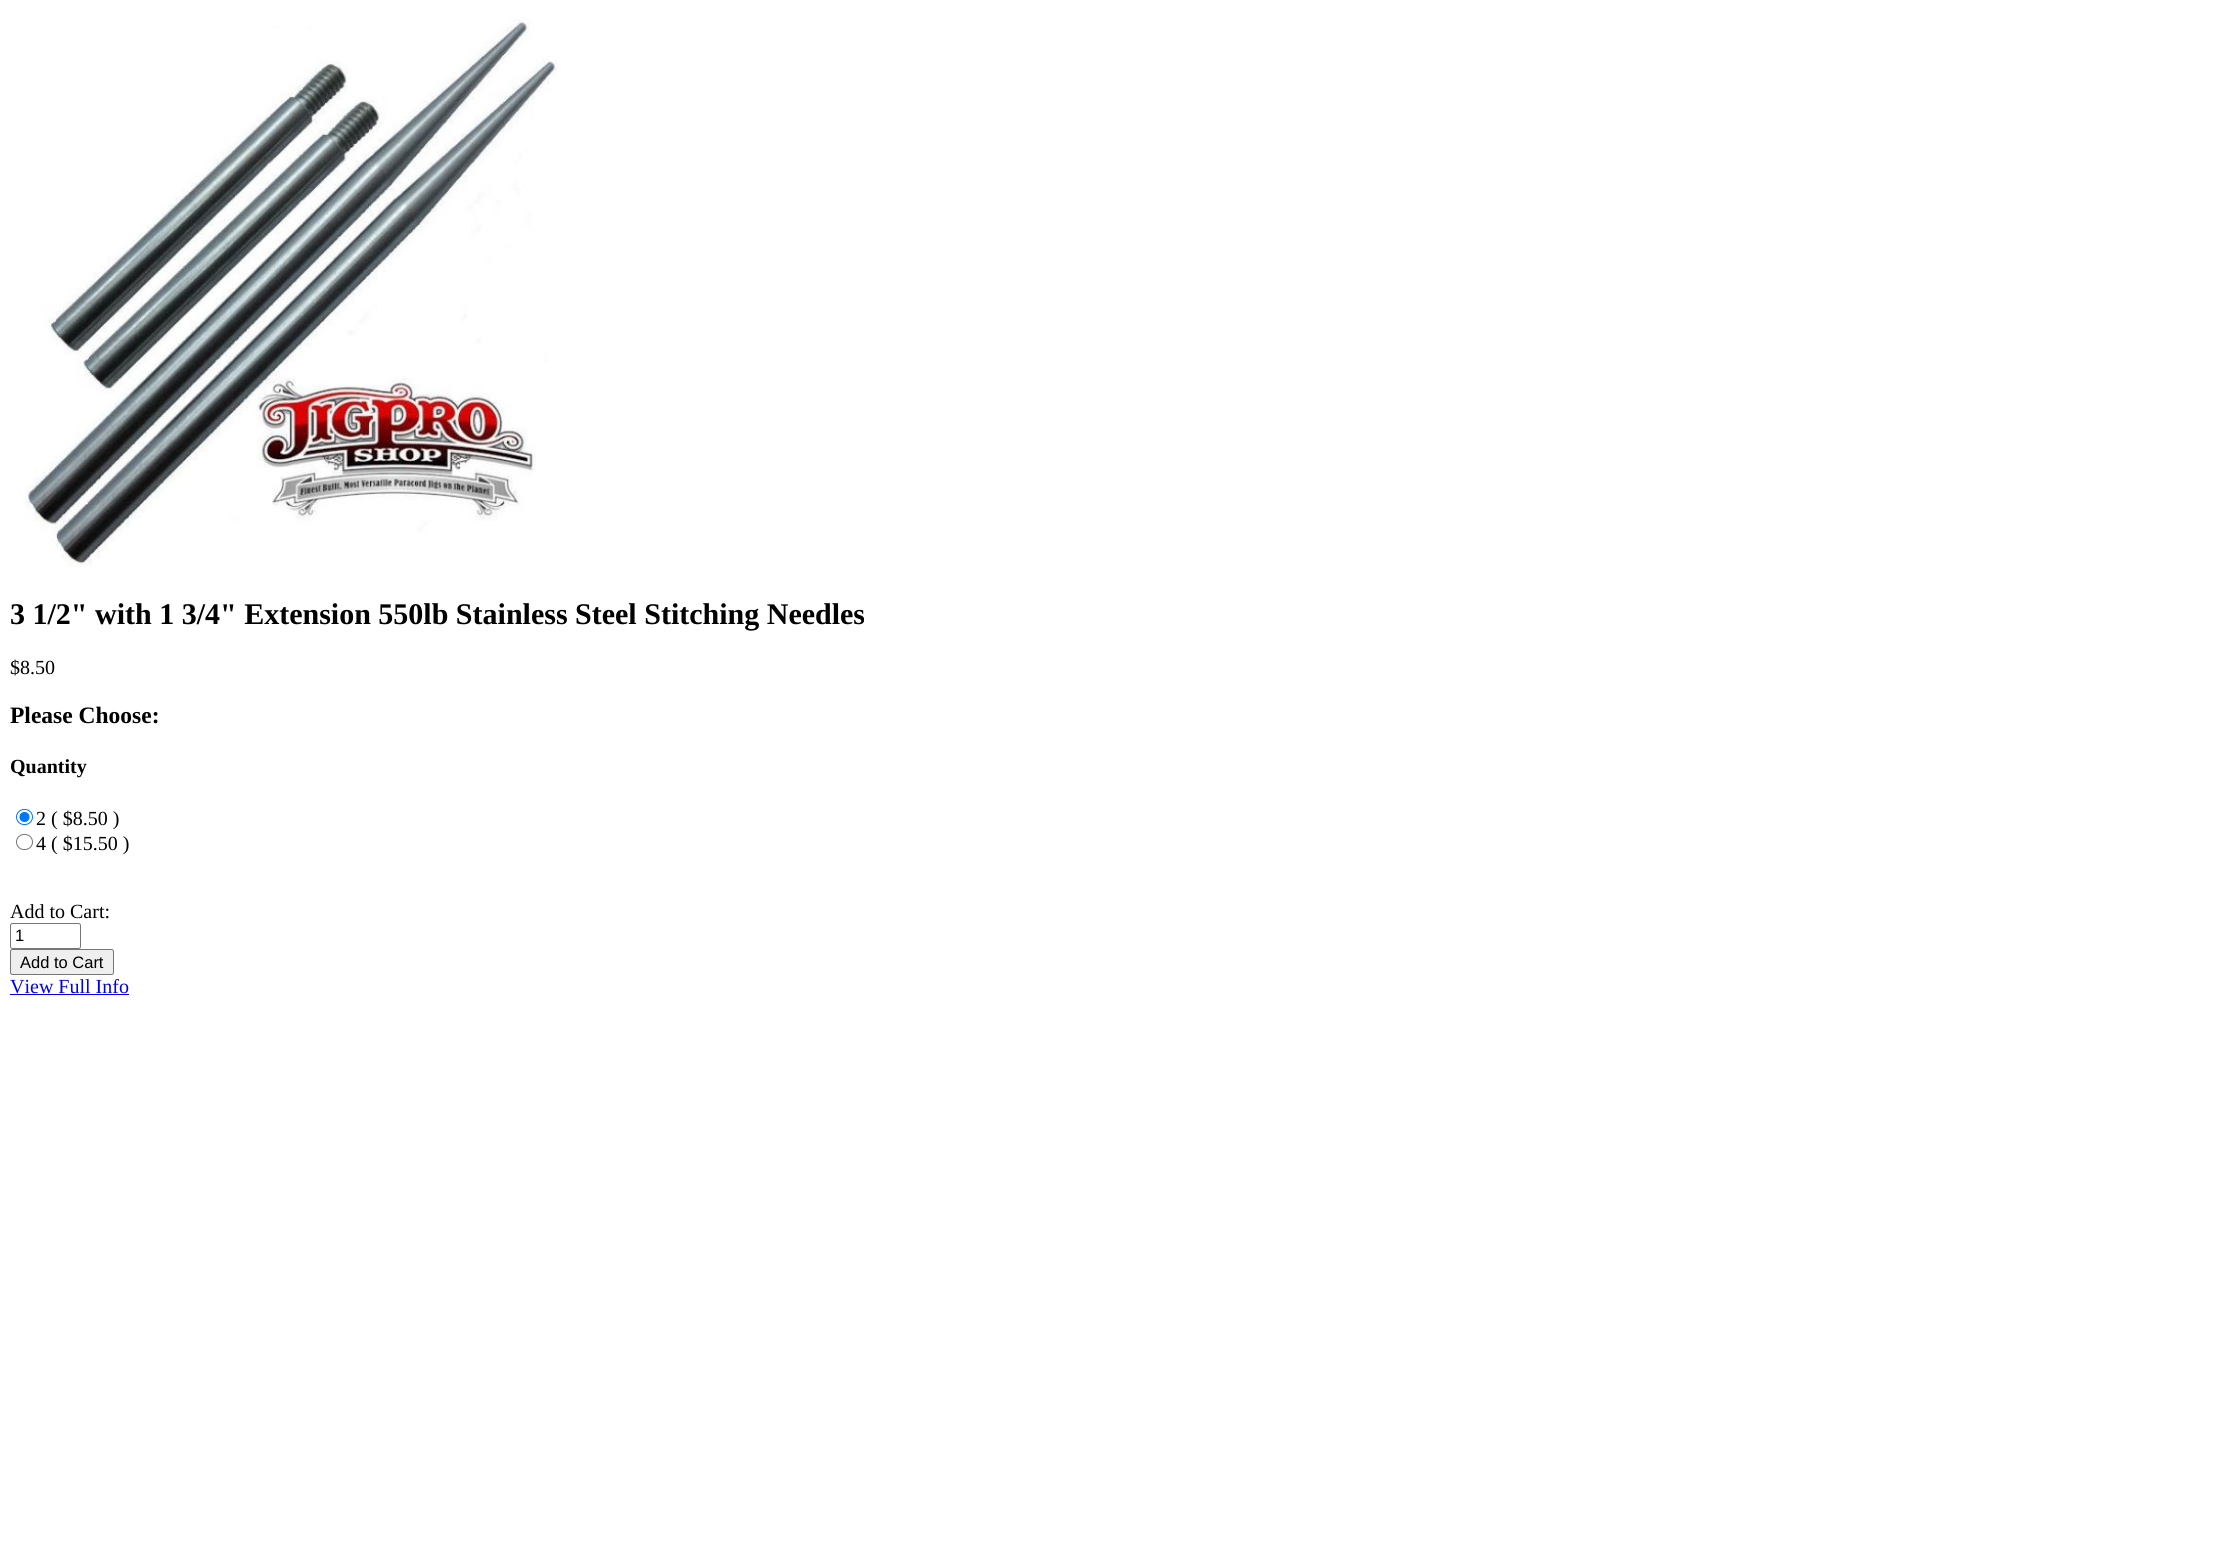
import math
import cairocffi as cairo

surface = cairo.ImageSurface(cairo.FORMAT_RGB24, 2238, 1555)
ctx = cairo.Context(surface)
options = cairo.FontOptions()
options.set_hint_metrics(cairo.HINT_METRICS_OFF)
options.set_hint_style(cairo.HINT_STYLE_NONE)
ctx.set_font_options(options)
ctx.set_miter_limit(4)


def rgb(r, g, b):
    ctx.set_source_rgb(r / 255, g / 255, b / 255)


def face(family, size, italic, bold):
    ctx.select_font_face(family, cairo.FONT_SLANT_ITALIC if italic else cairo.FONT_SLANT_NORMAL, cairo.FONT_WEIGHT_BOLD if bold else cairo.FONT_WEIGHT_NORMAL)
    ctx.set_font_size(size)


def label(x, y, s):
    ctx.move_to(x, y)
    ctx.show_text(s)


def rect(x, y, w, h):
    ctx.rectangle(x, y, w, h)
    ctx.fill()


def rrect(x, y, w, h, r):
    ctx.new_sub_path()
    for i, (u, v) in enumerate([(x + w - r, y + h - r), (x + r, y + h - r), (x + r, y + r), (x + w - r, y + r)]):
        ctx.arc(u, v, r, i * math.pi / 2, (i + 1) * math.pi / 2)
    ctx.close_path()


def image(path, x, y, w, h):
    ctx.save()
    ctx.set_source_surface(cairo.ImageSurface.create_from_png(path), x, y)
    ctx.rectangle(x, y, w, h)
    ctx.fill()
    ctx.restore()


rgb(255, 255, 255)
ctx.paint()
image('image0.png', 24, 18, 534, 549)
face('Liberation Serif', 30, 0, 1)
rgb(0, 0, 0)
label(10, 624, '3 1/2" with 1 3/4" Extension 550lb Stainless Steel Stitching Needles')
face('Liberation Serif', 20, 0, 0)
label(10, 674, '$8.50')
face('Liberation Serif', 23.5, 0, 1)
label(10, 723, 'Please Choose:')
face('Liberation Serif', 20, 0, 1)
label(10, 773, 'Quantity')
rrect(16.5, 809.5, 16, 15, 7.5)
rgb(0, 117, 255)
ctx.set_line_width(1)
ctx.stroke()
ctx.arc(24.5, 817, 5, 0, 2 * math.pi)
ctx.fill()
face('Liberation Serif', 20, 0, 0)
rgb(0, 0, 0)
label(36, 825, '2 ( $8.50 )')
rrect(16.5, 834.5, 16, 15, 7.5)
rgb(118, 118, 118)
ctx.stroke()
rgb(0, 0, 0)
label(36, 850, '4 ( $15.50 )')
label(10, 918, 'Add to Cart:')
rrect(10.5, 923.5, 70, 25, 2)
rgb(118, 118, 118)
ctx.stroke()
face('Liberation Sans', 16.5, 0, 0)
rgb(0, 0, 0)
label(15, 941, '1')
rgb(239, 239, 239)
rrect(10.5, 949.5, 103, 25, 2)
ctx.fill_preserve()
rgb(118, 118, 118)
ctx.stroke()
rgb(0, 0, 0)
label(20, 968, 'Add to Cart')
face('Liberation Serif', 20, 0, 0)
rgb(0, 0, 238)
label(10, 993, 'View Full Info')
rect(10, 994, 119, 1)
surface.write_to_png('render.png')
